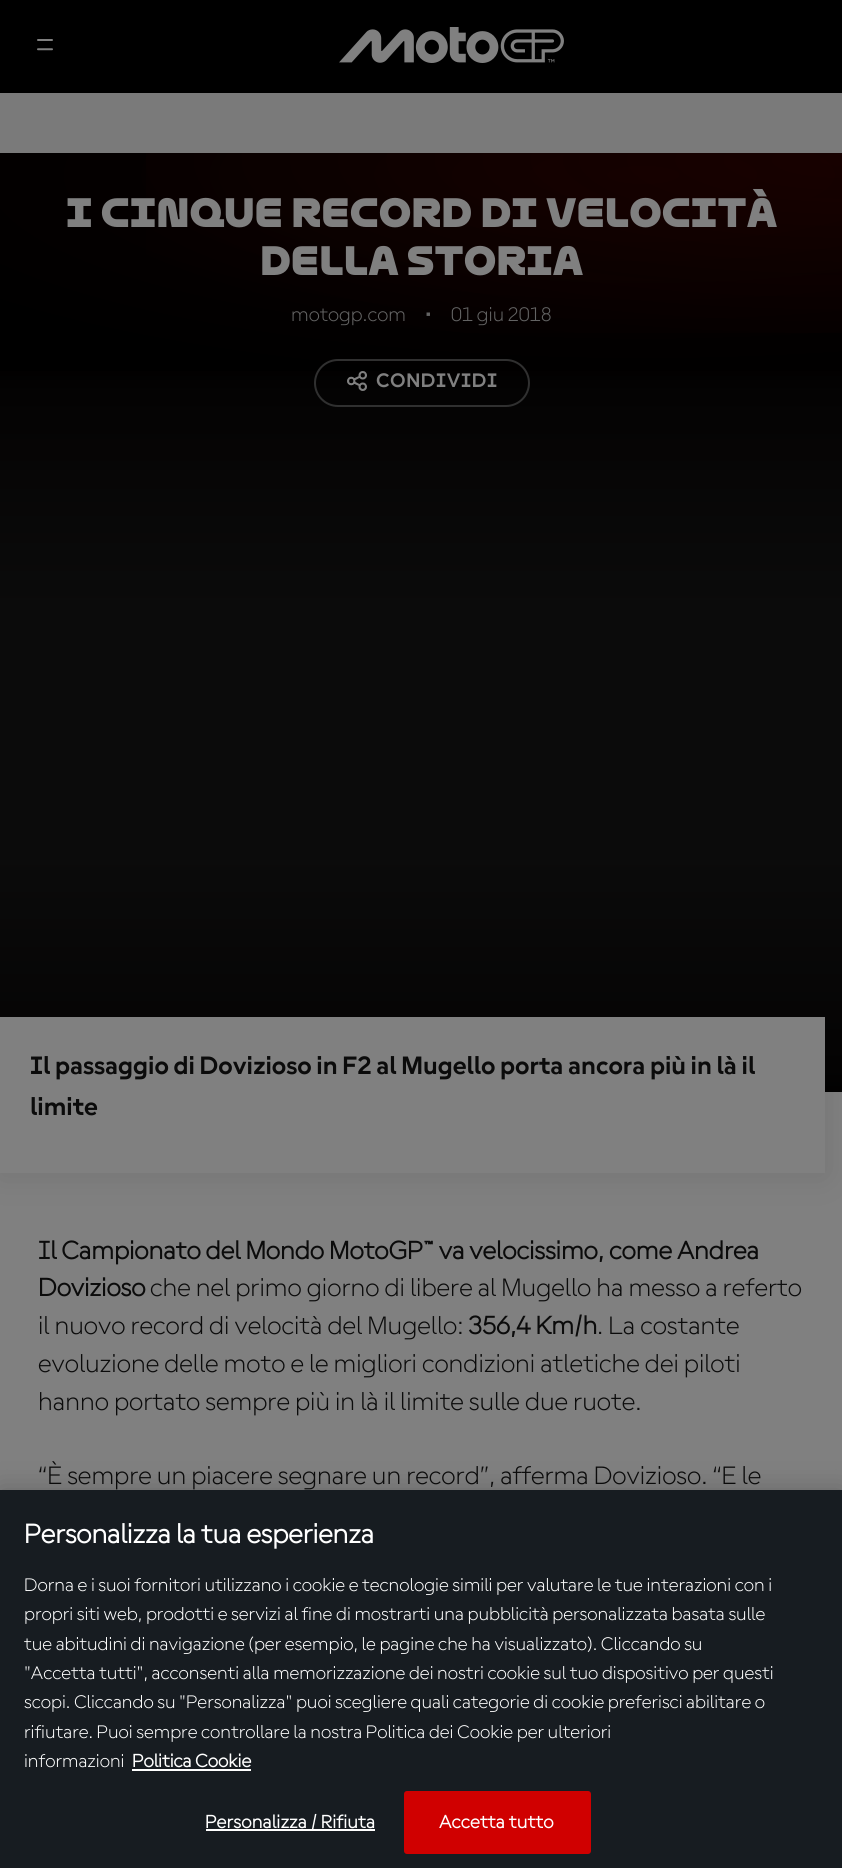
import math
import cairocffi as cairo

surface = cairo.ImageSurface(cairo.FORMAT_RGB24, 842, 1868)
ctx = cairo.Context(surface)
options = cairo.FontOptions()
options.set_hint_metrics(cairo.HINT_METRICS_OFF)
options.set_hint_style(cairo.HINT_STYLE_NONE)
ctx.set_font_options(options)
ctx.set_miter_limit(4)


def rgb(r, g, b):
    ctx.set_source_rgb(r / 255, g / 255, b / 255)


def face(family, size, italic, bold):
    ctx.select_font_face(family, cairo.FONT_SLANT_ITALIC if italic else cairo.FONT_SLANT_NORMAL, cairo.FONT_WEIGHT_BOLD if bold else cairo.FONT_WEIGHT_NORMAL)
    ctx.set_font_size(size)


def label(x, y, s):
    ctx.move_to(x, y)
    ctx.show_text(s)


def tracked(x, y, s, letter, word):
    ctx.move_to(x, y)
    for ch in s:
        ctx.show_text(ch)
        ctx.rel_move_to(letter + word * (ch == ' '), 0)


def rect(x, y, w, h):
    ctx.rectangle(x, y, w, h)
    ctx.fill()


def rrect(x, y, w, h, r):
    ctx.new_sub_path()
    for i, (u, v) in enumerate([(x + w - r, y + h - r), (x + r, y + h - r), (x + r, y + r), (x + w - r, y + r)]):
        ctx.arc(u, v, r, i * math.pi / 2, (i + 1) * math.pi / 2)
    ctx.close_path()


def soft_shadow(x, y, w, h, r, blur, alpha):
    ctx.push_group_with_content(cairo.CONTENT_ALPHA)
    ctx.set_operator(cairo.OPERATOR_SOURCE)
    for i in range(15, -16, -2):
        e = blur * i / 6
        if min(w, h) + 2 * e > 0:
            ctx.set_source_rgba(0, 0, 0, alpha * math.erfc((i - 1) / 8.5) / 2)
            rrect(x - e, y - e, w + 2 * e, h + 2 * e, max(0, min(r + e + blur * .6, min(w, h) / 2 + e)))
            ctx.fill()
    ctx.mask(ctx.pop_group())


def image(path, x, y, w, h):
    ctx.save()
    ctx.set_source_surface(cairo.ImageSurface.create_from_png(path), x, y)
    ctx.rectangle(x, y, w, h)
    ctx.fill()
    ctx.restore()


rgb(122, 122, 122)
ctx.paint()
rgb(0, 0, 0)
rect(0, 0, 842, 93)
image('image0.png', 37, 39, 16, 12)
image('image1.png', 339, 27, 225, 36)
rgb(128, 128, 128)
rect(0, 1092, 842, 398)
gradient = cairo.RadialGradient(0, 0, 0, 0, 0, 1)
gradient.set_matrix(cairo.Matrix(1 / 850, 0, 0, 1 / 212, -1 * 643 / 850, -1 * 175 / 212))
gradient.add_color_stop_rgba(0, 0.043, 0.004, 0, 1)
gradient.add_color_stop_rgba(1, 0, 0, 0, 1)
ctx.set_source(gradient)
rect(0, 153, 842, 218)
gradient = cairo.RadialGradient(0, 0, 0, 0, 0, 1)
gradient.set_matrix(cairo.Matrix(1 / 816, 0, 0, 1 / 203, -1 * 843 / 816, -1 * 160 / 203))
gradient.add_color_stop_rgba(0, 0.29, 0.008, 0.004, 0.23)
gradient.add_color_stop_rgba(1, 0.29, 0.008, 0.004, 0)
ctx.set_source(gradient)
rect(146, 153, 696, 180)
face('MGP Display', 36, 0, 1)
rgb(128, 128, 128)
label(66, 227, 'I cinque record di velocità')
label(260, 275, 'della storia')
face('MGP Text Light', 21, 0, 0)
rgb(99, 99, 99)
label(291, 321, 'motogp.com')
label(425, 321, '•')
label(451, 321, '01 giu 2018')
gradient = cairo.LinearGradient(422, 310, 422, 611)
gradient.add_color_stop_rgba(0.16, 0, 0, 0, 1)
gradient.add_color_stop_rgba(0.28, 0.016, 0.012, 0.012, 1)
gradient.add_color_stop_rgba(1, 0.043, 0.043, 0.043, 1)
ctx.set_source(gradient)
rect(0, 371, 842, 240)
rrect(315, 360, 214, 46, 23)
rgb(48, 48, 48)
ctx.stroke()
image('image2.png', 347, 371, 20, 20)
face('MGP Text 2', 21, 0, 1)
rgb(128, 128, 128)
tracked(376, 387, 'CONDIVIDI', 0.6, 0)
rgb(11, 11, 11)
rect(0, 611, 842, 241)
gradient = cairo.LinearGradient(422, 1152, 422, 852)
gradient.add_color_stop_rgba(0.16, 0, 0, 0, 1)
gradient.add_color_stop_rgba(0.28, 0.016, 0.012, 0.012, 1)
gradient.add_color_stop_rgba(1, 0.043, 0.043, 0.043, 1)
ctx.set_source(gradient)
rect(0, 852, 842, 240)
rgb(0, 0, 0)
soft_shadow(0, 1019, 825, 156, 0, 17, 0.1)
rgb(128, 128, 128)
rect(0, 1017, 825, 156)
face('MGP Text 2', 27, 0, 1)
rgb(11, 11, 11)
label(30, 1074, 'Il passaggio di Dovizioso in F2 al Mugello porta ancora più in là il')
label(30, 1115, 'limite')
face('MGP Text', 27, 0, 1)
label(38, 1259, 'Il Campionato del Mondo MotoGP™ va velocissimo, come Andrea')
label(38, 1296, 'Dovizioso')
face('MGP Text Light', 27, 0, 0)
label(150, 1296, 'che nel primo giorno di libere al Mugello ha messo a referto')
label(38, 1334, 'il nuovo record di velocità del Mugello:')
face('MGP Text', 27, 0, 1)
label(468, 1334, '356,4 Km/h')
face('MGP Text Light', 27, 0, 0)
label(597, 1334, '. La costante')
label(38, 1372, 'evoluzione delle moto e le migliori condizioni atletiche dei piloti')
label(38, 1410, 'hanno portato sempre più in là il limite sulle due ruote.')
label(38, 1484, '“È sempre un piacere segnare un record”, afferma Dovizioso. “E le')
rgb(0, 0, 0)
soft_shadow(0, 1490, 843, 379, 0, 13.5, 0.2)
rgb(23, 28, 33)
rect(0, 1490, 842, 378)
face('MGP Text', 28.75, 0, 1)
rgb(255, 255, 255)
label(24, 1543, 'Personalizza la tua esperienza')
face('MGP Text Light', 19.5, 0, 0)
label(24, 1591, 'Dorna e i suoi fornitori utilizzano i cookie e tecnologie simili per valutare le tue interazioni con i')
label(24, 1620, 'propri siti web, prodotti e servizi al fine di mostrarti una pubblicità personalizzata basata sulle')
label(24, 1650, 'tue abitudini di navigazione (per esempio, le pagine che ha visualizzato). Cliccando su')
label(24, 1679, '"Accetta tutti", acconsenti alla memorizzazione dei nostri cookie sul tuo dispositivo per questi')
label(24, 1708, 'scopi. Cliccando su "Personalizza" puoi scegliere quali categorie di cookie preferisci abilitare o')
label(24, 1738, 'rifiutare. Puoi sempre controllare la nostra Politica dei Cookie per ulteriori')
label(24, 1767, 'informazioni')
face('MGP Text', 19.5, 0, 1)
label(132, 1767, 'Politica Cookie')
rect(132, 1769, 119, 2)
rect(206, 1829, 169, 2)
tracked(205, 1828, 'Personalizza / Rifiuta', 0.2, 0)
rgb(208, 0, 0)
rrect(405, 1792, 185, 61, 2)
ctx.fill_preserve()
ctx.stroke()
rgb(255, 255, 255)
tracked(439, 1828, 'Accetta tutto', 0.2, 0)
surface.write_to_png('render.png')
